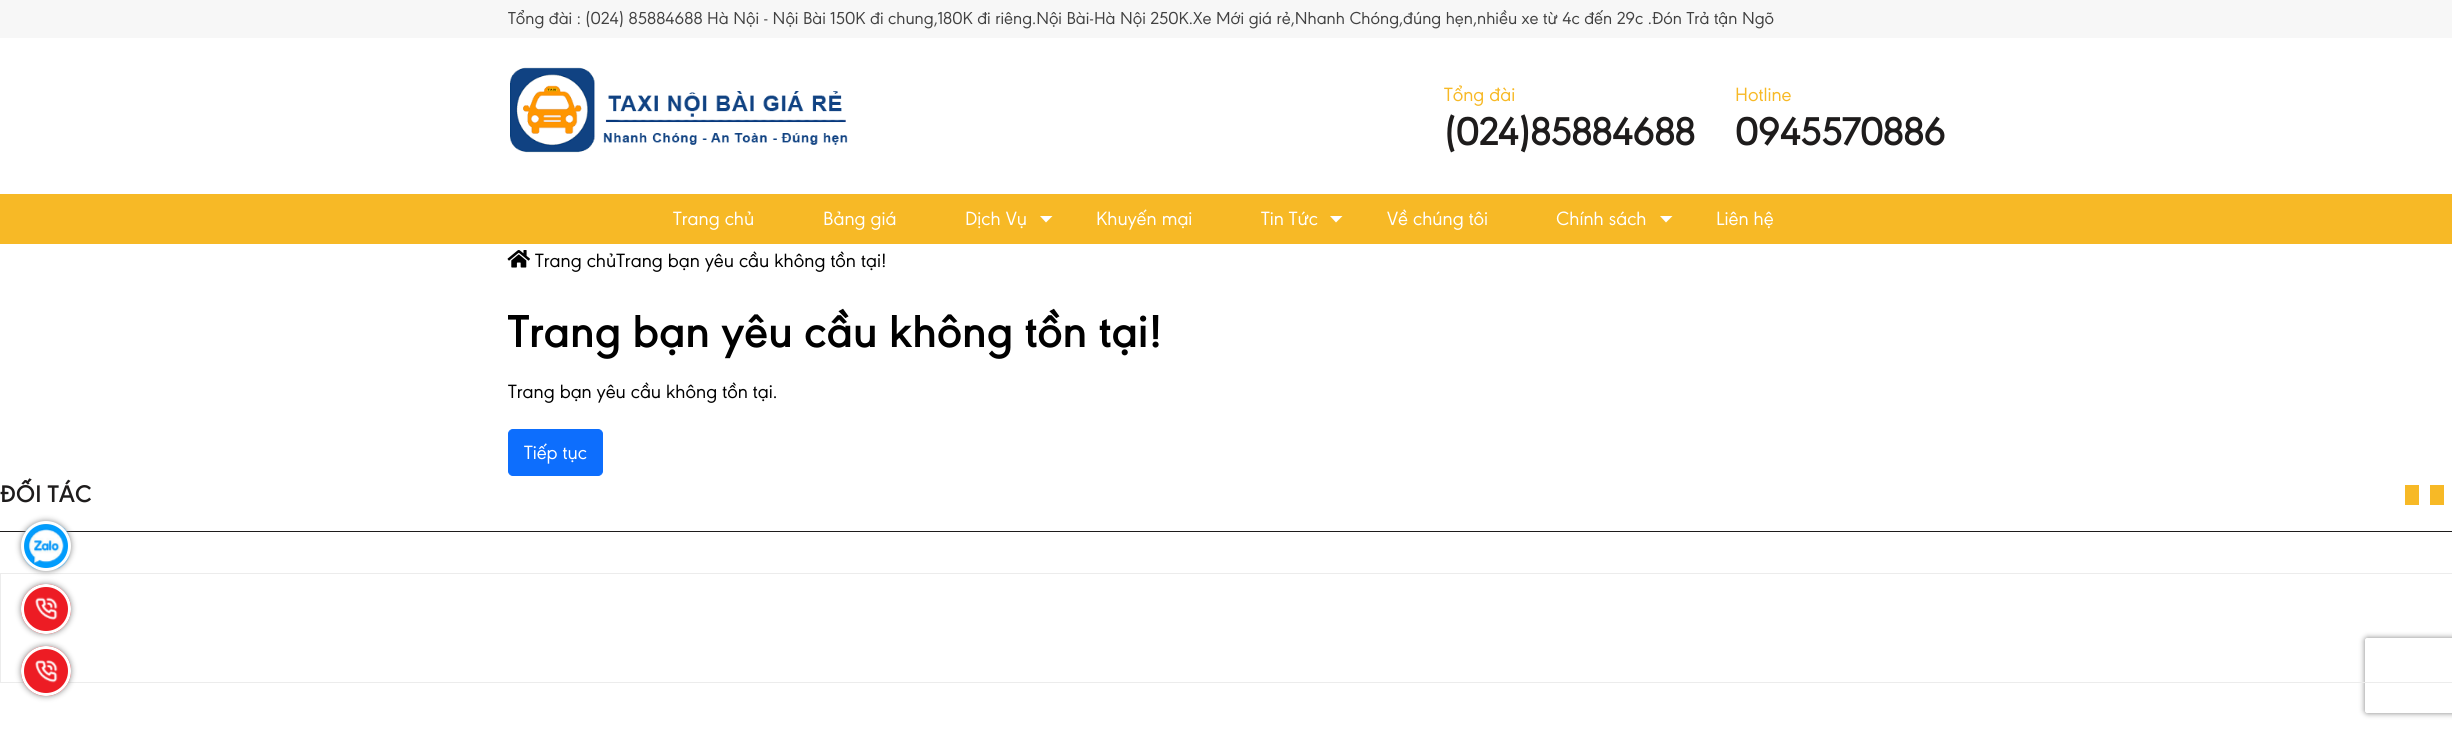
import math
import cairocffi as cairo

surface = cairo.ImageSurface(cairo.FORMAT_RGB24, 2452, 730)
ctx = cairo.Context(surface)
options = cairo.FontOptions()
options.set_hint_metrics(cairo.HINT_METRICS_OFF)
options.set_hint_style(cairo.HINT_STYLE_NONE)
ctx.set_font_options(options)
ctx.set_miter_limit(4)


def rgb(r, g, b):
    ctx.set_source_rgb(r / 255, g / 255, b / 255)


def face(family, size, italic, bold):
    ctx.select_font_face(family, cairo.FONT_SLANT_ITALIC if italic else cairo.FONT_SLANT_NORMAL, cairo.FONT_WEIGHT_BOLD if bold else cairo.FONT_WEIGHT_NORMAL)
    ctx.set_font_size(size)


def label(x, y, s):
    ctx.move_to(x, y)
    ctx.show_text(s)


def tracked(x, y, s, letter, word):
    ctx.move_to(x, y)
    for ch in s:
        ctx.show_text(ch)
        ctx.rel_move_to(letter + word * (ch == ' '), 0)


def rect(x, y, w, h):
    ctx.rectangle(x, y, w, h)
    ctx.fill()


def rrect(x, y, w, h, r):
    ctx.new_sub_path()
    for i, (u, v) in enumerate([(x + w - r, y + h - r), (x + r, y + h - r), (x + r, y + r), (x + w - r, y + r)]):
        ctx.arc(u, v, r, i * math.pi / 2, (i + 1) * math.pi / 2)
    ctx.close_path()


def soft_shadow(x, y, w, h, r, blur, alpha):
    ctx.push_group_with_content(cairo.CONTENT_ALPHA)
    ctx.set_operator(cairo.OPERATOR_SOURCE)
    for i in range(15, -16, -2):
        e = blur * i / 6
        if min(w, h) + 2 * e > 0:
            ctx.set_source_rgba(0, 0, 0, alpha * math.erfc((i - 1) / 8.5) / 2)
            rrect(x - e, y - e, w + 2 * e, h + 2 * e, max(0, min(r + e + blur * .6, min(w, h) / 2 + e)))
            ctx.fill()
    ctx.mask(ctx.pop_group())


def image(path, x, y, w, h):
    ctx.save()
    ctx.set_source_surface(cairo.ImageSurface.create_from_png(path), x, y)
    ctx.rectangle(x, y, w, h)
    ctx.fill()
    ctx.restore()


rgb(255, 255, 255)
ctx.paint()
rgb(247, 247, 247)
rect(0, 0, 2452, 38)
face('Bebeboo', 18, 0, 0)
rgb(65, 65, 65)
label(508, 24, 'Tổng đài : (024) 85884688 Hà Nội - Nội Bài 150K đi chung,180K đi riêng.Nội Bài-Hà Nội 250K.Xe Mới giá rẻ,Nhanh Chóng,đúng hẹn,nhiều xe từ 4c đến 29c .Đón Trả tận Ngõ')
image('image0.png', 510, 67, 338, 86)
face('Bebeboo', 20, 0, 0)
rgb(247, 185, 38)
label(1444, 101, 'Tổng đài')
face('Bebeboo', 40, 0, 1)
rgb(30, 28, 28)
label(1444, 145, '(024)85884688')
face('Bebeboo', 20, 0, 0)
rgb(247, 185, 38)
label(1735, 101, 'Hotline')
face('Bebeboo', 40, 0, 1)
rgb(30, 28, 28)
label(1735, 145, '0945570886')
rgb(247, 185, 38)
rect(0, 194, 2452, 50)
face('Bebeboo', 20, 0, 0)
rgb(255, 255, 255)
label(673, 225, 'Trang chủ')
label(823, 225, 'Bảng giá')
label(965, 225, 'Dịch Vụ')
ctx.new_path()
ctx.move_to(1040, 216)
ctx.line_to(1052.5, 216)
ctx.line_to(1046, 222.5)
ctx.close_path()
ctx.fill()
label(1096, 225, 'Khuyến mại')
label(1261, 225, 'Tin Tức')
ctx.new_path()
ctx.move_to(1330, 216)
ctx.line_to(1342.5, 216)
ctx.line_to(1336, 222.5)
ctx.close_path()
ctx.fill()
label(1387, 225, 'Về chúng tôi')
label(1556, 225, 'Chính sách')
ctx.new_path()
ctx.move_to(1660, 216)
ctx.line_to(1672.5, 216)
ctx.line_to(1666, 222.5)
ctx.close_path()
ctx.fill()
label(1716, 225, 'Liên hệ')
image('image1.png', 507, 250, 23, 18)
rgb(0, 0, 0)
label(535, 267, 'Trang chủTrang bạn yêu cầu không tồn tại!')
face('Bebeboo SemiBold', 48, 0, 0)
tracked(508, 347, 'Trang bạn yêu cầu không tồn tại!', 0.2, 0)
face('Bebeboo', 20, 0, 0)
label(508, 398, 'Trang bạn yêu cầu không tồn tại.')
rgb(13, 110, 253)
rrect(508.5, 429.5, 94, 46, 4.5)
ctx.fill_preserve()
ctx.set_line_width(1)
ctx.stroke()
rgb(255, 255, 255)
label(524, 459, 'Tiếp tục')
rgb(30, 28, 28)
rect(0, 531, 2452, 1)
face('Bebeboo SemiBold', 25, 0, 0)
tracked(0, 502, 'ĐỐI TÁC', 0.2, 0)
rgb(247, 185, 38)
rect(2405, 485, 14, 20)
rect(2430, 485, 14, 20)
ctx.save()
ctx.set_fill_rule(cairo.FILL_RULE_EVEN_ODD)
ctx.new_path()
ctx.move_to(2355, 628)
ctx.line_to(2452, 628)
ctx.line_to(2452, 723)
ctx.line_to(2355, 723)
ctx.close_path()
ctx.move_to(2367.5, 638)
ctx.line_to(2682.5, 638)
ctx.curve_to(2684, 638, 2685, 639, 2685, 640.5)
ctx.line_to(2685, 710.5)
ctx.curve_to(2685, 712, 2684, 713, 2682.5, 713)
ctx.line_to(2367.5, 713)
ctx.curve_to(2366, 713, 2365, 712, 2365, 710.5)
ctx.line_to(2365, 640.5)
ctx.curve_to(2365, 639, 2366, 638, 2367.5, 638)
ctx.close_path()
ctx.clip()
rgb(128, 128, 128)
soft_shadow(2365, 638, 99, 75, 2.5, 3, 1)
ctx.restore()
ctx.rectangle(0.5, 573.5, 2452, 109)
rgb(236, 236, 236)
ctx.stroke()
rgb(136, 136, 136)
soft_shadow(21, 521, 50, 50, 25, 3, 1)
image('image2.png', 23, 523, 47, 47)
ctx.arc(46, 546, 23.5, 0, 2 * math.pi)
rgb(255, 255, 255)
ctx.set_line_width(3)
ctx.stroke()
rgb(136, 136, 136)
soft_shadow(21, 584, 50, 50, 25, 3, 1)
rgb(237, 28, 36)
ctx.arc(46, 609, 25, 0, 2 * math.pi)
ctx.fill()
image('image3.png', 35, 597, 23, 23)
ctx.arc(46, 609, 23.5, 0, 2 * math.pi)
rgb(255, 255, 255)
ctx.stroke()
rgb(136, 136, 136)
soft_shadow(21, 646, 50, 50, 25, 3, 1)
rgb(237, 28, 36)
ctx.arc(46, 671, 25, 0, 2 * math.pi)
ctx.fill()
image('image4.png', 35, 660, 23, 23)
ctx.arc(46, 671, 23.5, 0, 2 * math.pi)
rgb(255, 255, 255)
ctx.stroke()
surface.write_to_png('render.png')
